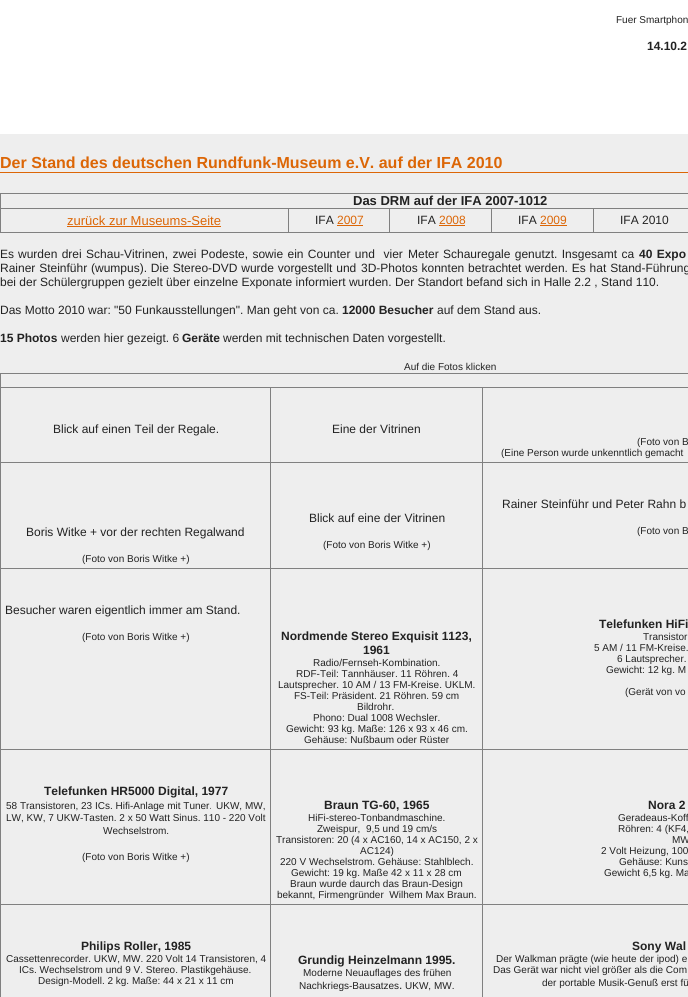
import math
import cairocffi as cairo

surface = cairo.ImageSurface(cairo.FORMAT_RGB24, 688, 997)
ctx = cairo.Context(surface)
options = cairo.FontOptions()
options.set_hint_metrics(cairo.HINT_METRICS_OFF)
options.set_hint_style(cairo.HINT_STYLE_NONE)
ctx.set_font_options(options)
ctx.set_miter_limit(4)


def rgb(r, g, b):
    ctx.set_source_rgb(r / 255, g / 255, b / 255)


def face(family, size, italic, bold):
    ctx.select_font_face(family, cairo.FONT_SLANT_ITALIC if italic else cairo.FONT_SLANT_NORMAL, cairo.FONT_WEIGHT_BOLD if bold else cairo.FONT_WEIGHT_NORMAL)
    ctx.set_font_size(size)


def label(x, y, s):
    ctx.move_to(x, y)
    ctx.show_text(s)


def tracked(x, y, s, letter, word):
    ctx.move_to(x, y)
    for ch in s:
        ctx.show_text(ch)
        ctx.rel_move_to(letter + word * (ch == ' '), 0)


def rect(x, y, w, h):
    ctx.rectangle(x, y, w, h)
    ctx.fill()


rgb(255, 255, 255)
ctx.paint()
face('Liberation Sans', 10, 0, 0)
rgb(34, 34, 34)
label(616, 23, 'Fuer Smartphon')
face('Liberation Sans', 12, 0, 1)
label(647, 50, '14.10.2')
rgb(238, 238, 238)
rect(0, 134, 688, 863)
rgb(220, 102, 6)
rect(0, 172, 688, 1)
face('Liberation Sans', 16, 0, 1)
label(0, 168, 'Der Stand des deutschen Rundfunk-Museum e.V. auf der IFA 2010')
rgb(128, 128, 128)
rect(0, 193, 688, 1)
rect(0, 232, 688, 1)
rect(0, 193, 1, 40)
face('Liberation Sans', 13, 0, 1)
rgb(34, 34, 34)
label(353, 205, 'Das DRM auf der IFA 2007-1012')
rgb(128, 128, 128)
rect(593, 208, 95, 1)
rect(593, 208, 1, 25)
rect(491, 208, 103, 1)
rect(491, 208, 1, 25)
rect(389, 208, 103, 1)
rect(389, 208, 1, 25)
rect(288, 208, 102, 1)
rect(288, 208, 1, 25)
rect(0, 208, 289, 1)
face('Liberation Sans', 13, 0, 0)
rgb(220, 102, 6)
label(67, 225, 'zurück zur Museums-Seite')
rect(67, 226, 154, 1)
face('Liberation Sans', 12, 0, 0)
rgb(34, 34, 34)
label(315, 224, 'IFA')
rgb(220, 102, 6)
label(337, 224, '2007')
rect(337, 225, 26, 1)
rgb(34, 34, 34)
label(417, 224, 'IFA')
rgb(220, 102, 6)
label(439, 224, '2008')
rect(439, 225, 26, 1)
rgb(34, 34, 34)
label(518, 224, 'IFA')
rgb(220, 102, 6)
label(540, 224, '2009')
rect(540, 225, 27, 1)
rgb(34, 34, 34)
label(620, 224, 'IFA 2010')
label(0, 258, 'Es')
tracked(18, 258, 'wurden drei Schau-Vitrinen, zwei Podeste, sowie ein Counter und  vier', 0, 1)
tracked(408, 258, 'Meter Schauregale genutzt. Insgesamt ca', 0, 1)
face('Liberation Sans', 12, 0, 1)
tracked(639, 258, '40 Expo', 0, 1)
face('Liberation Sans', 12, 0, 0)
tracked(0, 272, 'Rainer Steinführ (wumpus). Die Stereo-DVD wurde vorgestellt und', 0, 0.5)
tracked(361, 272, '3D-Photos konnten betrachtet werden. Es hat Stand-Führung', 0, 0.5)
label(0, 286, 'bei der Schülergruppen gezielt über einzelne Exponate informiert wurden. Der Standort befand sich in Halle 2.2 , Stand 110.')
label(0, 314, 'Das Motto 2010 war: "50 Funkausstellungen". Man geht von ca.')
face('Liberation Sans', 12, 0, 1)
label(342, 314, '12000 Besucher')
face('Liberation Sans', 12, 0, 0)
label(437, 314, 'auf dem Stand aus.')
face('Liberation Sans', 12, 0, 1)
label(0, 342, '15 Photos')
face('Liberation Sans', 12, 0, 0)
label(61, 342, 'werden hier gezeigt. 6')
face('Liberation Sans', 12, 0, 1)
label(182, 342, 'Geräte')
face('Liberation Sans', 12, 0, 0)
label(223, 342, 'werden mit technischen Daten vorgestellt.')
face('Liberation Sans', 10, 0, 0)
label(404, 370, 'Auf die Fotos klicken')
rgb(128, 128, 128)
rect(0, 373, 688, 1)
rect(0, 373, 1, 624)
rect(482, 387, 206, 1)
rect(482, 462, 206, 1)
rect(482, 568, 206, 1)
rect(482, 749, 206, 1)
rect(482, 904, 206, 1)
rect(482, 904, 1, 93)
rect(270, 904, 213, 1)
rect(482, 749, 1, 156)
rect(270, 749, 213, 1)
rect(482, 568, 1, 182)
rect(270, 568, 213, 1)
rect(482, 462, 1, 107)
rect(270, 462, 213, 1)
rect(482, 387, 1, 76)
rect(270, 387, 213, 1)
rect(270, 904, 1, 93)
rect(0, 904, 271, 1)
rect(270, 749, 1, 156)
rect(0, 749, 271, 1)
rect(270, 568, 1, 182)
rect(0, 568, 271, 1)
rect(270, 462, 1, 107)
rect(0, 462, 271, 1)
rect(270, 387, 1, 76)
rect(0, 387, 271, 1)
face('Liberation Sans', 12, 0, 0)
rgb(34, 34, 34)
label(53, 433, 'Blick auf einen Teil der Regale.')
label(332, 433, 'Eine der Vitrinen')
face('Liberation Sans', 10, 0, 0)
label(637, 445, '(Foto von B')
label(501, 456, '(Eine Person wurde unkenntlich gemacht')
face('Liberation Sans', 12, 0, 0)
label(26, 536, 'Boris Witke + vor der rechten Regalwand')
face('Liberation Sans', 10, 0, 0)
label(82, 562, '(Foto von Boris Witke +)')
face('Liberation Sans', 12, 0, 0)
label(309, 522, 'Blick auf eine der Vitrinen')
face('Liberation Sans', 10, 0, 0)
label(323, 548, '(Foto von Boris Witke +)')
face('Liberation Sans', 12, 0, 0)
label(502, 508, 'Rainer Steinführ und Peter Rahn b')
face('Liberation Sans', 10, 0, 0)
label(637, 534, '(Foto von B')
face('Liberation Sans', 12, 0, 0)
label(5, 614, 'Besucher waren eigentlich immer am Stand.')
face('Liberation Sans', 10, 0, 0)
label(82, 640, '(Foto von Boris Witke +)')
face('Liberation Sans', 12, 0, 1)
label(281, 640, 'Nordmende Stereo Exquisit 1123,')
label(363, 654, '1961')
face('Liberation Sans', 10, 0, 0)
label(313, 666, 'Radio/Fernseh-Kombination.')
label(296, 677, 'RDF-Teil: Tannhäuser. 11 Röhren. 4')
label(278, 688, 'Lautsprecher. 10 AM / 13 FM-Kreise. UKLM.')
label(294, 699, 'FS-Teil: Präsident. 21 Röhren. 59 cm')
label(357, 710, 'Bildrohr.')
label(313, 721, 'Phono: Dual 1008 Wechsler.')
label(286, 732, 'Gewicht: 93 kg. Maße: 126 x 93 x 46 cm.')
label(304, 743, 'Gehäuse: Nußbaum oder Rüster')
face('Liberation Sans', 12, 0, 1)
label(599, 628, 'Telefunken HiFi')
face('Liberation Sans', 10, 0, 0)
label(643, 640, 'Transistor')
label(594, 651, '5 AM / 11 FM-Kreise.')
label(617, 662, '6 Lautsprecher.')
label(606, 673, 'Gewicht: 12 kg. M')
label(625, 695, '(Gerät von vo')
face('Liberation Sans', 12, 0, 1)
label(44, 795, 'Telefunken HR5000 Digital, 1977')
face('Liberation Sans', 10, 0, 0)
label(6, 809, '58 Transistoren, 23 ICs. Hifi-Anlage mit Tuner.')
label(216, 809, 'UKW, MW,')
label(6, 821, 'LW, KW, 7 UKW-Tasten. 2 x 50 Watt Sinus. 110 - 220 Volt')
label(103, 834, 'Wechselstrom.')
label(82, 860, '(Foto von Boris Witke +)')
face('Liberation Sans', 12, 0, 1)
label(324, 809, 'Braun TG-60, 1965')
face('Liberation Sans', 10, 0, 0)
label(308, 821, 'HiFi-stereo-Tonbandmaschine.')
label(317, 832, 'Zweispur,  9,5 und 19 cm/s')
label(276, 843, 'Transistoren: 20 (4 x AC160, 14 x AC150, 2 x')
label(360, 854, 'AC124)')
label(280, 865, '220 V Wechselstrom. Gehäuse: Stahlblech.')
label(291, 876, 'Gewicht: 19 kg. Maße 42 x 11 x 28 cm')
label(290, 887, 'Braun wurde daurch das Braun-Design')
label(277, 898, 'bekannt, Firmengründer  Wilhem Max Braun.')
face('Liberation Sans', 12, 0, 1)
label(648, 809, 'Nora 2')
face('Liberation Sans', 10, 0, 0)
label(618, 821, 'Geradeaus-Koff')
label(618, 832, 'Röhren: 4 (KF4,')
label(672, 843, 'MW')
label(601, 854, '2 Volt Heizung, 100')
label(619, 865, 'Gehäuse: Kuns')
label(604, 876, 'Gewicht 6,5 kg. Ma')
face('Liberation Sans', 12, 0, 1)
label(81, 950, 'Philips Roller, 1985')
face('Liberation Sans', 10, 0, 0)
label(6, 962, 'Cassettenrecorder. UKW, MW. 220 Volt 14 Transistoren, 4')
label(19, 973, 'ICs. Wechselstrom und 9 V. Stereo. Plastikgehäuse.')
label(38, 984, 'Design-Modell. 2 kg. Maße: 44 x 21 x 11 cm')
face('Liberation Sans', 12, 0, 1)
label(298, 964, 'Grundig Heinzelmann 1995.')
face('Liberation Sans', 10, 0, 0)
label(303, 976, 'Moderne Neuauflages des frühen')
label(299, 989, 'Nachkriegs-Bausatzes')
face('Liberation Sans', 12, 0, 0)
label(399, 989, '.')
face('Liberation Sans', 10, 0, 0)
label(405, 989, 'UKW, MW.')
face('Liberation Sans', 12, 0, 1)
label(632, 950, 'Sony Wal')
face('Liberation Sans', 10, 0, 0)
label(496, 962, 'Der Walkman prägte (wie heute der ipod) e')
label(493, 973, 'Das Gerät war nicht viel größer als die Com')
label(542, 986, 'der portable Musik-Genuß erst fü')
surface.write_to_png('render.png')
